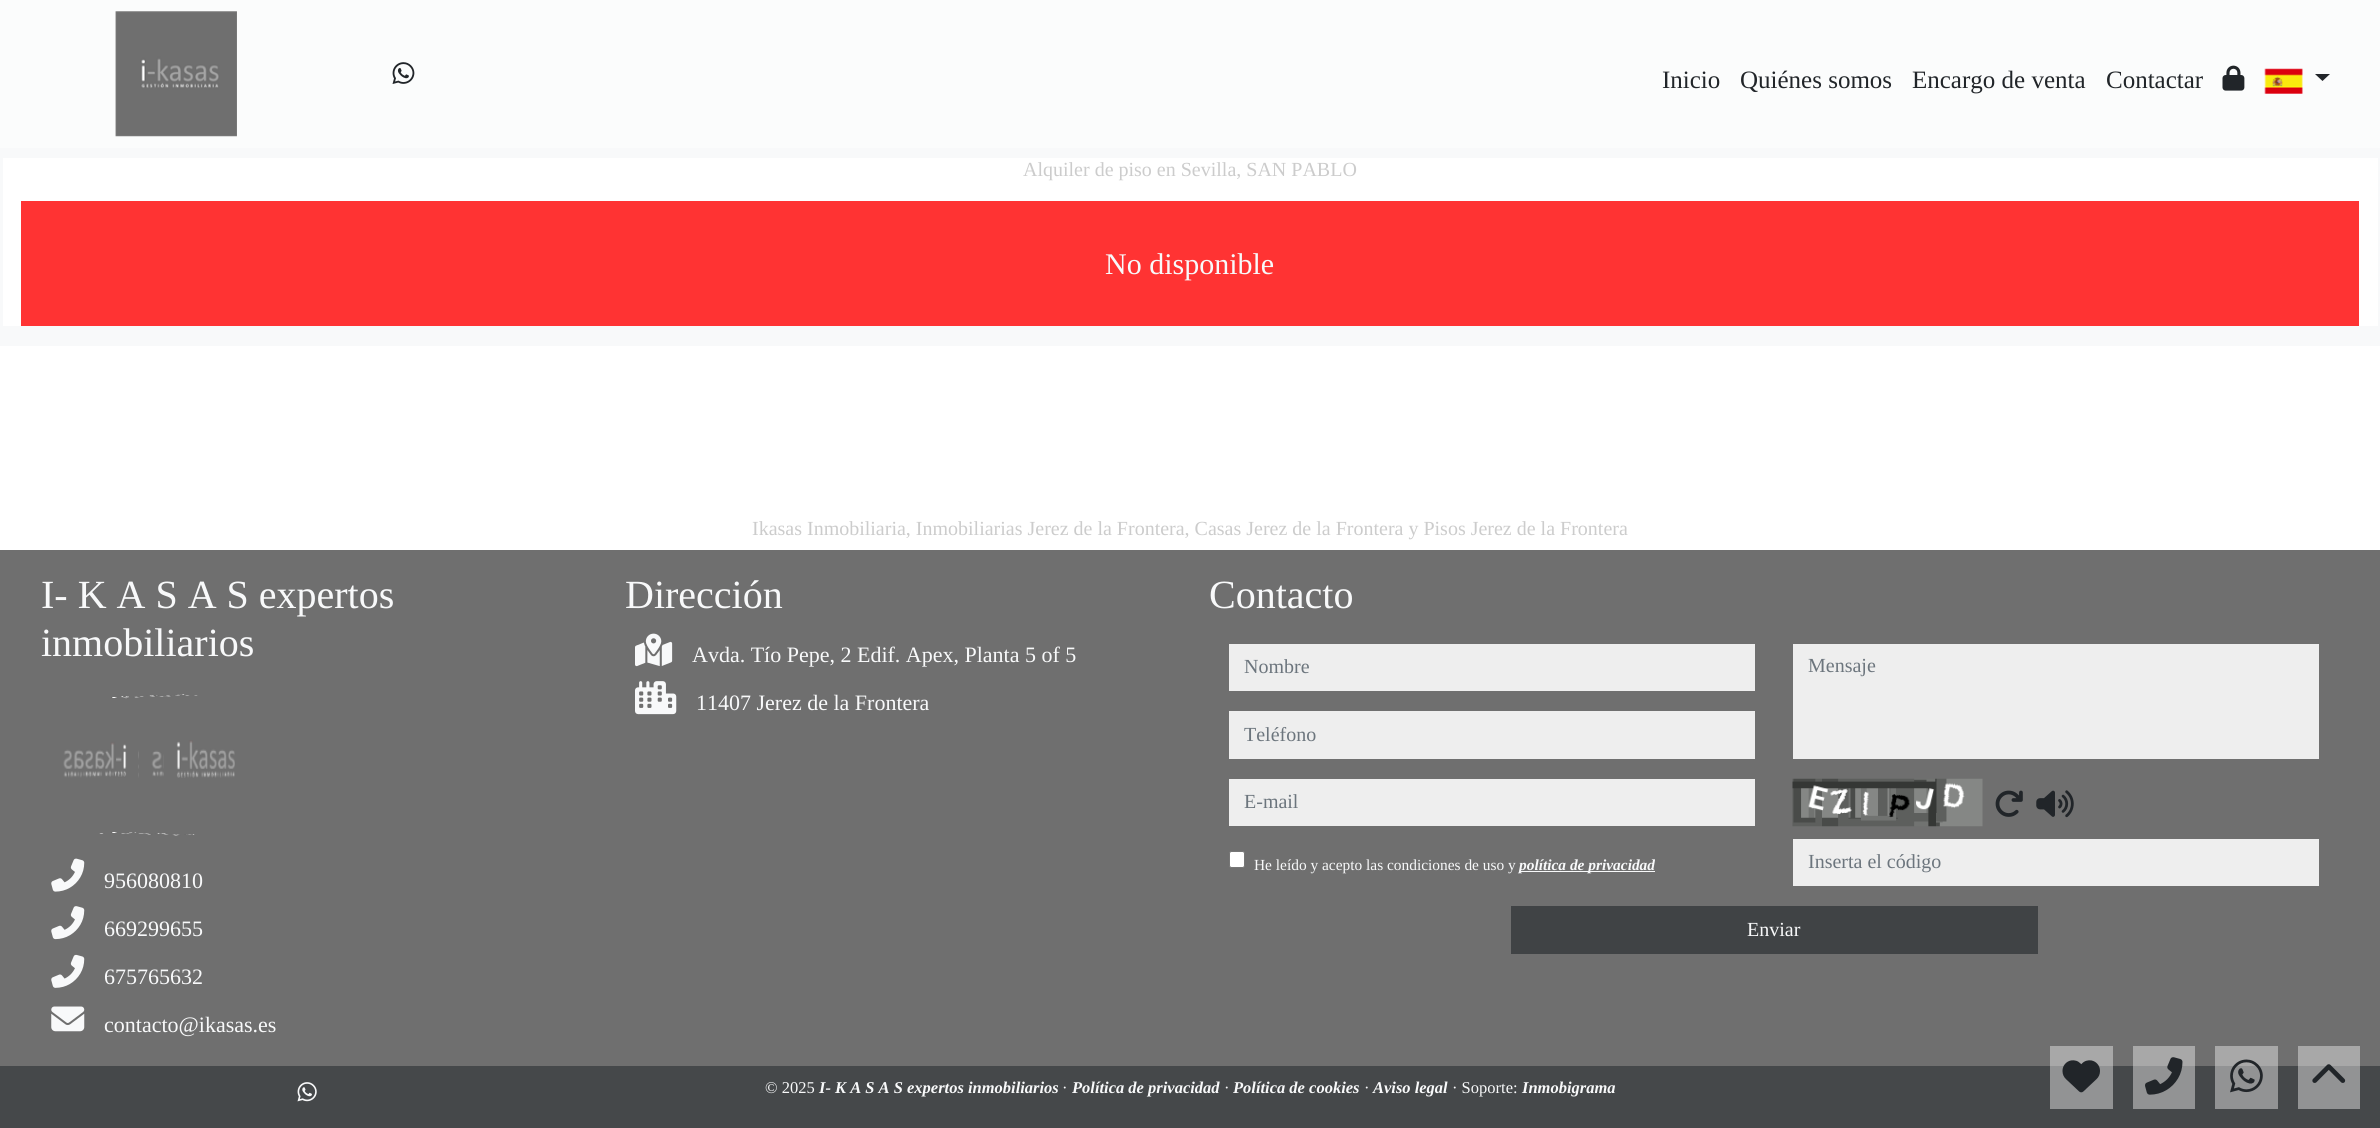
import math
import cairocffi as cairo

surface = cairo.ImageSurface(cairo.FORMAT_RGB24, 2380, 1128)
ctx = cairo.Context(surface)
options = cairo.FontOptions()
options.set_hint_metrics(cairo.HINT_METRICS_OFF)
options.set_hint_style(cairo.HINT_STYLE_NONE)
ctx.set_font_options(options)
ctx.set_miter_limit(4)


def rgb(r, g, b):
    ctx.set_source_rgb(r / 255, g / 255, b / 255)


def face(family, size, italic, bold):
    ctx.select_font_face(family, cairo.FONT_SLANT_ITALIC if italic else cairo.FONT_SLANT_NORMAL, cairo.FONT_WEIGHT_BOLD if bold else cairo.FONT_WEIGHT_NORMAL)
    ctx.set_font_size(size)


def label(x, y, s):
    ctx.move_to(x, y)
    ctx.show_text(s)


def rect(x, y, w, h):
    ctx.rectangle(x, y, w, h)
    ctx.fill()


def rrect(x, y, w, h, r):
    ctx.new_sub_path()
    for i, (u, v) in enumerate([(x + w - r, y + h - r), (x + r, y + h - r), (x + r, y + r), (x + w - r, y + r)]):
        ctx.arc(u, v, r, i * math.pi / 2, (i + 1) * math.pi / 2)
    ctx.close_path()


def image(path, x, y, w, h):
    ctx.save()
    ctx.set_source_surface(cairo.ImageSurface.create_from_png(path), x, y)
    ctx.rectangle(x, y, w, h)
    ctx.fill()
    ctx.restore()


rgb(255, 255, 255)
ctx.paint()
rgb(251, 252, 252)
rect(0, 0, 2380, 148)
image('image0.png', 115, 11, 122, 126)
image('image1.png', 392, 62, 23, 22)
face('Liberation Serif', 25, 0, 0)
rgb(33, 37, 41)
label(1662, 88, 'Inicio')
label(1740, 88, 'Quiénes somos')
label(1912, 88, 'Encargo de venta')
label(2106, 88, 'Contactar')
image('image2.png', 2222, 65, 23, 26)
image('image3.png', 2264, 68, 39, 26)
ctx.new_path()
ctx.move_to(2315, 74)
ctx.line_to(2330, 74)
ctx.line_to(2322.5, 81)
ctx.close_path()
ctx.fill()
rgb(248, 249, 250)
rect(0, 148, 2380, 198)
rgb(255, 255, 255)
rect(3, 158, 2375, 168)
face('Liberation Serif', 20, 0, 0)
rgb(204, 204, 204)
label(1023, 176, 'Alquiler de piso en Sevilla, SAN PABLO')
rgb(255, 51, 51)
rect(21, 201, 2338, 125)
face('Liberation Serif', 30, 0, 0)
rgb(248, 249, 250)
label(1105, 274, 'No disponible')
face('Liberation Serif', 20, 0, 0)
rgb(204, 204, 204)
label(752, 535, 'Ikasas Inmobiliaria, Inmobiliarias Jerez de la Frontera, Casas Jerez de la Frontera y Pisos Jerez de la Frontera')
rgb(111, 111, 111)
rect(0, 550, 2380, 516)
rgb(168, 168, 168)
rect(2050, 1046, 63, 20)
rect(2133, 1046, 62, 20)
rect(2215, 1046, 63, 20)
rect(2298, 1046, 62, 20)
face('Liberation Serif', 40, 0, 0)
rgb(248, 249, 250)
label(41, 608, 'I- K A S A S expertos')
label(41, 656, 'inmobiliarios')
image('image4.png', 111, 694, 87, 5)
image('image5.png', 63, 741, 75, 37)
image('image6.png', 138, 741, 10, 37)
image('image7.png', 164, 740, 71, 38)
image('image8.png', 138, 742, 26, 36)
image('image9.png', 99, 832, 96, 4)
image('image10.png', 51, 858, 34, 34)
face('Liberation Serif', 22, 0, 0)
label(104, 888, '956080810')
image('image11.png', 51, 906, 34, 34)
label(104, 936, '669299655')
image('image12.png', 51, 954, 34, 34)
label(104, 984, '675765632')
image('image13.png', 51, 1006, 34, 26)
label(104, 1032, 'contacto@ikasas.es')
face('Liberation Serif', 40, 0, 0)
label(625, 608, 'Dirección')
image('image14.png', 635, 633, 38, 34)
face('Liberation Serif', 22, 0, 0)
label(692, 662, 'Avda. Tío Pepe, 2 Edif. Apex, Planta 5 of 5')
image('image15.png', 635, 681, 42, 34)
label(696, 710, '11407 Jerez de la Frontera')
face('Liberation Serif', 40, 0, 0)
label(1209, 608, 'Contacto')
rgb(238, 238, 238)
rect(1229, 644, 526, 47)
face('Liberation Serif', 20, 0, 0)
rgb(108, 117, 125)
label(1244, 673, 'Nombre')
rgb(238, 238, 238)
rect(1229, 711, 526, 48)
rgb(108, 117, 125)
label(1244, 741, 'Teléfono')
rgb(238, 238, 238)
rect(1229, 779, 526, 47)
rgb(108, 117, 125)
label(1244, 808, 'E-mail')
rgb(255, 255, 255)
rrect(1229.5, 851.5, 15, 16, 2)
ctx.fill_preserve()
rgb(118, 118, 118)
ctx.set_line_width(1)
ctx.stroke()
face('Liberation Serif', 15.4, 0, 0)
rgb(248, 249, 250)
label(1254, 870, 'He leído y acepto las condiciones de uso y')
rect(1519, 871, 136, 1)
face('Liberation Serif', 15.4, 1, 1)
label(1519, 870, 'política de privacidad')
rgb(238, 238, 238)
rect(1793, 644, 526, 115)
face('Liberation Serif', 20, 0, 0)
rgb(108, 117, 125)
label(1808, 672, 'Mensaje')
image('image16.png', 1792, 778, 191, 49)
image('image17.png', 1995, 790, 28, 27)
image('image18.png', 2036, 790, 38, 28)
rgb(238, 238, 238)
rect(1793, 839, 526, 47)
rgb(108, 117, 125)
label(1808, 868, 'Inserta el código')
rgb(64, 67, 69)
rect(1511, 906, 527, 48)
rgb(248, 249, 250)
label(1747, 936, 'Enviar')
rgb(69, 72, 74)
rect(0, 1066, 2380, 62)
rgb(146, 147, 148)
rect(2050, 1066, 63, 43)
rect(2133, 1066, 62, 43)
rect(2215, 1066, 63, 43)
rect(2298, 1066, 62, 43)
image('image19.png', 297, 1082, 20, 20)
face('Liberation Serif', 16.5, 0, 0)
rgb(248, 249, 250)
label(765, 1093, '© 2025')
face('Liberation Serif', 16.5, 1, 1)
label(819, 1093, 'I- K A S A S expertos inmobiliarios')
face('Liberation Serif', 16.5, 0, 0)
label(1062, 1093, '·')
face('Liberation Serif', 16.5, 1, 1)
label(1072, 1093, 'Política de privacidad')
face('Liberation Serif', 16.5, 0, 0)
label(1224, 1093, '·')
face('Liberation Serif', 16.5, 1, 1)
label(1233, 1093, 'Política de cookies')
face('Liberation Serif', 16.5, 0, 0)
label(1364, 1093, '·')
face('Liberation Serif', 16.5, 1, 1)
label(1373, 1093, 'Aviso legal')
face('Liberation Serif', 16.5, 0, 0)
label(1452, 1093, '· Soporte:')
face('Liberation Serif', 16.5, 1, 1)
label(1522, 1093, 'Inmobigrama')
image('image20.png', 2062, 1060, 38, 33)
image('image21.png', 2145, 1057, 38, 38)
image('image22.png', 2230, 1059, 33, 34)
image('image23.png', 2312, 1064, 34, 19)
surface.write_to_png('render.png')
